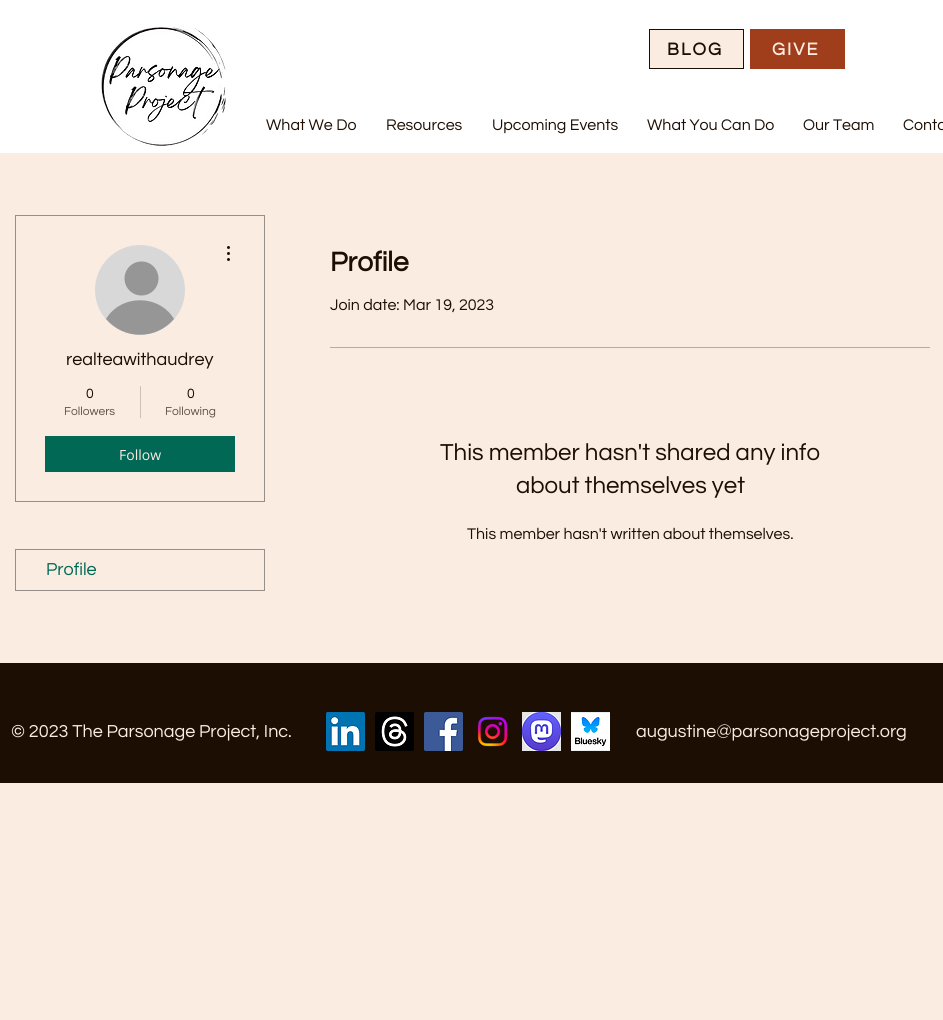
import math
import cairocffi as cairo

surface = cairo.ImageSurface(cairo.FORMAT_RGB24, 943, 1020)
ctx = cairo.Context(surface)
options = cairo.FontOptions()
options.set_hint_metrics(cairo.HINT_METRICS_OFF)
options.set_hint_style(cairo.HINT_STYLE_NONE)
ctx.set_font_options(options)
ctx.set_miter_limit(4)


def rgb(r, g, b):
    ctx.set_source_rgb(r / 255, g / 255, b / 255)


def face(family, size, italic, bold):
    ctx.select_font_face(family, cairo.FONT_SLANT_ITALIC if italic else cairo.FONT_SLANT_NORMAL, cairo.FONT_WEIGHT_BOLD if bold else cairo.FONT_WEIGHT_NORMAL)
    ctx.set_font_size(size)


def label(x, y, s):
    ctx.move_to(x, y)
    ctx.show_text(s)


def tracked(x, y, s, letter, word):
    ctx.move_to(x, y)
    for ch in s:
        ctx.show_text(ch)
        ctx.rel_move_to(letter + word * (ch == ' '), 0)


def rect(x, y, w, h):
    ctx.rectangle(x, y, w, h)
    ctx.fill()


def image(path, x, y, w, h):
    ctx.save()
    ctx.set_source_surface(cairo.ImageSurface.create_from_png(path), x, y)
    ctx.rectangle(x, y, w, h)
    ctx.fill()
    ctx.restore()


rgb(250, 236, 225)
ctx.paint()
rgb(255, 255, 255)
rect(0, 0, 943, 153)
image('image0.png', 101, 27, 125, 119)
rgb(250, 236, 225)
ctx.rectangle(649.5, 29.5, 94, 39)
ctx.fill_preserve()
rgb(29, 14, 3)
ctx.set_line_width(1)
ctx.stroke()
face('Questrial', 18, 0, 1)
tracked(667, 55, 'BLOG', 2, 0)
rgb(160, 61, 27)
rect(750, 29, 95, 40)
rgb(250, 236, 225)
tracked(772, 55, 'GIVE', 2, 0)
face('Questrial', 16, 0, 0)
rgb(29, 14, 3)
label(266, 130, 'What We Do')
label(386, 130, 'Resources')
label(492, 130, 'Upcoming Events')
label(647, 130, 'What You Can Do')
label(803, 130, 'Our Team')
label(903, 130, 'Conta')
ctx.rectangle(15.5, 215.5, 249, 286)
rgb(150, 142, 135)
ctx.stroke()
rgb(216, 216, 216)
ctx.arc(140, 290, 45, 0, 2 * math.pi)
ctx.fill()
rgb(150, 150, 150)
ctx.arc(141.5, 278.5, 17, 0, 2 * math.pi)
ctx.fill()
ctx.new_path()
ctx.move_to(174, 319)
ctx.curve_to(156, 340, 124, 340, 106, 319)
ctx.curve_to(121, 294, 159, 294, 174, 319)
ctx.close_path()
ctx.fill()
image('image1.png', 227, 246, 3, 15)
face('Questrial', 18, 0, 0)
rgb(29, 14, 3)
label(66, 365, 'realteawithaudrey')
face('Questrial', 14, 0, 0)
label(86, 398, '0')
face('Questrial', 12, 0, 0)
rgb(95, 81, 70)
label(64, 415, 'Followers')
rgb(206, 192, 181)
rect(140, 386, 1, 32)
face('Questrial', 14, 0, 0)
rgb(29, 14, 3)
label(187, 398, '0')
face('Questrial', 12, 0, 0)
rgb(95, 81, 70)
label(165, 415, 'Following')
rgb(1, 104, 85)
rect(45, 436, 190, 36)
face('Open Sans', 14, 0, 0)
rgb(250, 236, 225)
label(119, 460, 'Follow')
ctx.rectangle(15.5, 549.5, 249, 41)
rgb(150, 142, 135)
ctx.stroke()
face('Questrial', 18, 0, 0)
rgb(1, 104, 85)
label(46, 575, 'Profile')
face('Questrial', 28, 0, 1)
rgb(29, 14, 3)
label(330, 271, 'Profile')
face('Questrial', 16, 0, 0)
label(330, 310, 'Join date: Mar 19, 2023')
rgb(184, 169, 158)
rect(330, 347, 600, 1)
face('Questrial', 24, 0, 0)
rgb(29, 14, 3)
label(440, 460, 'This member hasn\'t shared any info')
label(516, 493, 'about themselves yet')
face('Questrial', 16, 0, 0)
label(467, 539, 'This member hasn\'t written about themselves.')
rect(0, 663, 943, 120)
face('Questrial', 18, 0, 0)
rgb(250, 236, 225)
label(11, 737, '© 2023 The Parsonage Project, Inc.')
image('image2.png', 326, 712, 39, 39)
image('image3.png', 375, 712, 39, 39)
image('image4.png', 424, 712, 39, 39)
image('image5.png', 477, 716, 31, 31)
image('image6.png', 522, 712, 39, 39)
image('image7.png', 571, 712, 39, 39)
label(636, 737, 'augustine@parsonageproject.org')
surface.write_to_png('render.png')
